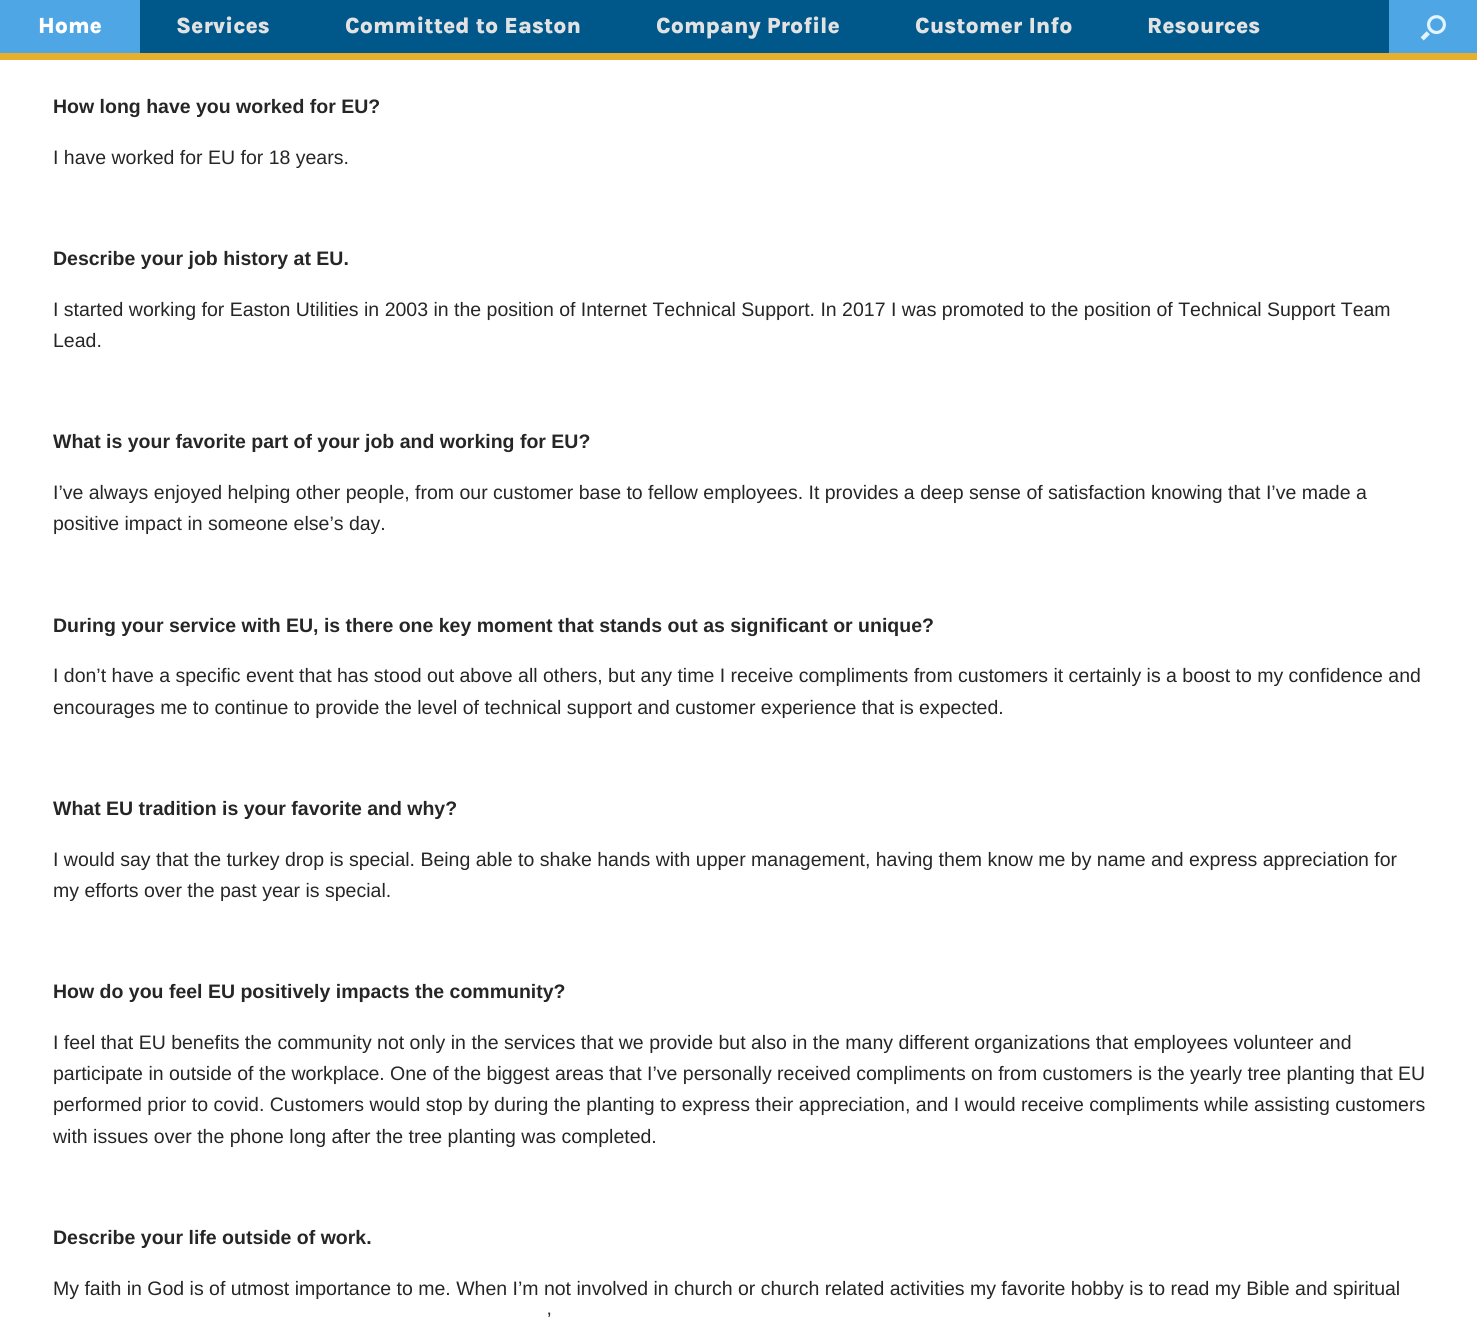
import math
import cairocffi as cairo

surface = cairo.ImageSurface(cairo.FORMAT_RGB24, 1477, 1317)
ctx = cairo.Context(surface)
options = cairo.FontOptions()
options.set_hint_metrics(cairo.HINT_METRICS_OFF)
options.set_hint_style(cairo.HINT_STYLE_NONE)
ctx.set_font_options(options)
ctx.set_miter_limit(4)


def rgb(r, g, b):
    ctx.set_source_rgb(r / 255, g / 255, b / 255)


def face(family, size, italic, bold):
    ctx.select_font_face(family, cairo.FONT_SLANT_ITALIC if italic else cairo.FONT_SLANT_NORMAL, cairo.FONT_WEIGHT_BOLD if bold else cairo.FONT_WEIGHT_NORMAL)
    ctx.set_font_size(size)


def label(x, y, s):
    ctx.move_to(x, y)
    ctx.show_text(s)


def rect(x, y, w, h):
    ctx.rectangle(x, y, w, h)
    ctx.fill()


def image(path, x, y, w, h):
    ctx.save()
    ctx.set_source_surface(cairo.ImageSurface.create_from_png(path), x, y)
    ctx.rectangle(x, y, w, h)
    ctx.fill()
    ctx.restore()


rgb(255, 255, 255)
ctx.paint()
rgb(0, 87, 137)
rect(140, 0, 1249, 53)
rgb(230, 176, 46)
rect(0, 53, 1477, 7)
rgb(79, 166, 229)
rect(0, 0, 140, 53)
face('Karla ExtraBold', 22.5, 0, 0)
rgb(255, 255, 255)
label(38, 33, 'Home')
rgb(226, 226, 226)
label(176, 33, 'Services')
label(345, 33, 'Committed to Easton')
label(656, 33, 'Company Profile')
label(915, 33, 'Customer Info')
label(1147, 33, 'Resources')
rgb(79, 166, 229)
rect(1389, 0, 88, 53)
image('image0.png', 1420, 15, 26, 26)
face('Liberation Sans', 19.5, 0, 1)
rgb(38, 38, 38)
label(53, 113, 'How long have you worked for EU?')
face('Liberation Sans', 19.5, 0, 0)
label(53, 164, 'I have worked for EU for 18 years.')
face('Liberation Sans', 19.5, 0, 1)
label(53, 265, 'Describe your job history at EU.')
face('Liberation Sans', 19.5, 0, 0)
label(53, 316, 'I started working for Easton Utilities in 2003 in the position of Internet Technical Support. In 2017 I was promoted to the position of Technical Support Team')
label(53, 347, 'Lead.')
face('Liberation Sans', 19.5, 0, 1)
label(53, 448, 'What is your favorite part of your job and working for EU?')
face('Liberation Sans', 19.5, 0, 0)
label(53, 499, 'I’ve always enjoyed helping other people, from our customer base to fellow employees. It provides a deep sense of satisfaction knowing that I’ve made a')
label(53, 530, 'positive impact in someone else’s day.')
face('Liberation Sans', 19.5, 0, 1)
label(53, 632, 'During your service with EU, is there one key moment that stands out as significant or unique?')
face('Liberation Sans', 19.5, 0, 0)
label(53, 682, 'I don’t have a specific event that has stood out above all others, but any time I receive compliments from customers it certainly is a boost to my confidence and')
label(53, 714, 'encourages me to continue to provide the level of technical support and customer experience that is expected.')
face('Liberation Sans', 19.5, 0, 1)
label(53, 815, 'What EU tradition is your favorite and why?')
face('Liberation Sans', 19.5, 0, 0)
label(53, 866, 'I would say that the turkey drop is special. Being able to shake hands with upper management, having them know me by name and express appreciation for')
label(53, 897, 'my efforts over the past year is special.')
face('Liberation Sans', 19.5, 0, 1)
label(53, 998, 'How do you feel EU positively impacts the community?')
face('Liberation Sans', 19.5, 0, 0)
label(53, 1049, 'I feel that EU benefits the community not only in the services that we provide but also in the many different organizations that employees volunteer and')
label(53, 1080, 'participate in outside of the workplace. One of the biggest areas that I’ve personally received compliments on from customers is the yearly tree planting that EU')
label(53, 1111, 'performed prior to covid. Customers would stop by during the planting to express their appreciation, and I would receive compliments while assisting customers')
label(53, 1143, 'with issues over the phone long after the tree planting was completed.')
face('Liberation Sans', 19.5, 0, 1)
label(53, 1244, 'Describe your life outside of work.')
face('Liberation Sans', 19.5, 0, 0)
label(53, 1295, 'My faith in God is of utmost importance to me. When I’m not involved in church or church related activities my favorite hobby is to read my Bible and spiritual')
label(547, 1326, '’')
surface.write_to_png('render.png')
